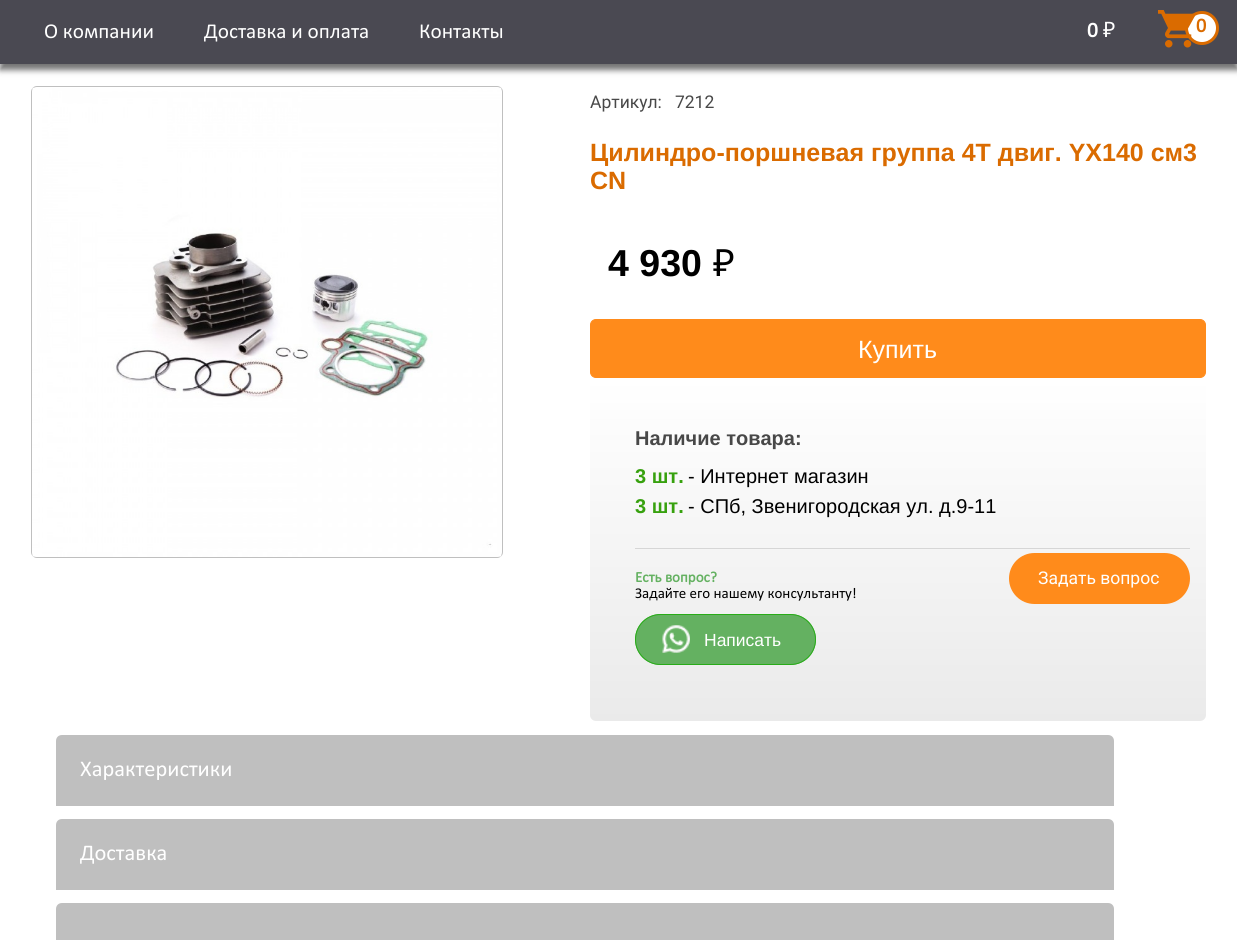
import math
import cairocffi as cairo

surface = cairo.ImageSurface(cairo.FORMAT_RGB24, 1237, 940)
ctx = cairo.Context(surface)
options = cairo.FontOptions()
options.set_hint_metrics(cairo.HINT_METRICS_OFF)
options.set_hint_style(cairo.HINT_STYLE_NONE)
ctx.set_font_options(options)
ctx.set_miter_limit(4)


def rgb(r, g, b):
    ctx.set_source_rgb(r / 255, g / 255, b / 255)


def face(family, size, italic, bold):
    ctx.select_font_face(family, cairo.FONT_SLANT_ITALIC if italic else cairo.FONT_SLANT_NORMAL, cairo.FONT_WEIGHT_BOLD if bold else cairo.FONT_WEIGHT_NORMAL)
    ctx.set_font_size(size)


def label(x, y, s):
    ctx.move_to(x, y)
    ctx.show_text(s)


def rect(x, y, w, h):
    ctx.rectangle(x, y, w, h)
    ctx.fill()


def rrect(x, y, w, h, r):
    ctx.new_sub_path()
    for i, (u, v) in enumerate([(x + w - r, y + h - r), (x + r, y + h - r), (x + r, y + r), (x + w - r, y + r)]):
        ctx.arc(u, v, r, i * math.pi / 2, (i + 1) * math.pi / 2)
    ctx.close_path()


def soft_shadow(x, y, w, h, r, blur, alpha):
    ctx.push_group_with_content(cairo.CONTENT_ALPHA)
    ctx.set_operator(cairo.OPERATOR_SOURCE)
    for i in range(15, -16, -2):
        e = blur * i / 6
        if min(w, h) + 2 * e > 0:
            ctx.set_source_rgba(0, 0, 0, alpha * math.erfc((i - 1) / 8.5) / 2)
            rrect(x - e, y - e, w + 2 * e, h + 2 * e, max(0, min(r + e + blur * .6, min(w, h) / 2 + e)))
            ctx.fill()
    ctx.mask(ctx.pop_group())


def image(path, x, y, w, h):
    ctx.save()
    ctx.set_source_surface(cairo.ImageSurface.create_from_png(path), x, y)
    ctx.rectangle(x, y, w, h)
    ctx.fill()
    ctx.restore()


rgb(255, 255, 255)
ctx.paint()
rgb(0, 0, 0)
soft_shadow(0, 6, 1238, 64, 0, 3, 0.55)
rgb(74, 73, 82)
rect(0, 0, 1237, 64)
face('Calibri', 21.25, 0, 0)
rgb(255, 255, 255)
label(44, 38, 'О компании')
label(204, 38, 'Доставка и оплата')
label(419, 38, 'Контакты')
face('Calibri', 21.25, 0, 1)
label(1087, 37, '0')
face('Noto Sans', 21.25, 0, 0)
label(1103, 37, '₽')
ctx.new_path()
ctx.arc(1202, 28, 15.5, 0, 2 * math.pi)
ctx.fill_preserve()
rgb(218, 107, 0)
ctx.set_line_width(3)
ctx.stroke()
image('image0.png', 1158, 10, 37, 38)
face('Calibri', 20, 0, 1)
label(1196, 32, '0')
rrect(31.5, 86.5, 471, 471, 5.5)
rgb(191, 191, 191)
ctx.set_line_width(1)
ctx.stroke()
image('image1.png', 32, 87, 470, 470)
face('Roboto', 17.5, 0, 0)
rgb(72, 72, 72)
label(590, 108, 'Артикул:   7212')
face('Liberation Sans', 25, 0, 1)
rgb(218, 107, 0)
label(590, 161, 'Цилиндро-поршневая группа 4T двиг. YX140 см3')
label(590, 189, 'CN')
face('Liberation Sans', 37.5, 0, 1)
rgb(0, 0, 0)
label(608, 276, '4 930')
face('Noto Sans', 37.5, 0, 0)
label(713, 276, '₽')
rgb(255, 139, 27)
rrect(590.5, 319.5, 615, 58, 5.5)
ctx.fill_preserve()
ctx.stroke()
face('Liberation Sans', 25, 0, 0)
rgb(255, 255, 255)
label(858, 358, 'Купить')
gradient = cairo.LinearGradient(898, 378, 898, 721)
gradient.add_color_stop_rgba(0, 1, 1, 1, 1)
gradient.add_color_stop_rgba(1, 0.918, 0.918, 0.918, 1)
ctx.set_source(gradient)
rrect(590, 378, 616, 343, 6)
ctx.fill()
face('Liberation Sans', 20, 0, 1)
rgb(72, 72, 72)
label(635, 445, 'Наличие товара:')
rgb(55, 161, 14)
label(635, 483, '3 шт.')
face('Liberation Sans', 20, 0, 0)
rgb(0, 0, 0)
label(688, 483, '- Интернет магазин')
face('Liberation Sans', 20, 0, 1)
rgb(55, 161, 14)
label(635, 513, '3 шт.')
face('Liberation Sans', 20, 0, 0)
rgb(0, 0, 0)
label(688, 513, '- СПб, Звенигородская ул. д.9-11')
rgb(214, 214, 214)
rect(635, 548, 555, 1)
face('Calibri', 15, 0, 1)
rgb(100, 177, 97)
label(635, 582, 'Есть вопрос?')
face('Calibri', 15, 0, 0)
rgb(0, 0, 0)
label(635, 598, 'Задайте его нашему консультанту!')
rgb(255, 139, 27)
rrect(1009, 553, 181, 51, 25.5)
ctx.fill()
face('Roboto', 17.5, 0, 0)
rgb(255, 255, 255)
label(1038, 584, 'Задать вопрос')
rgb(100, 177, 97)
rrect(635, 614, 181, 51, 25.5)
ctx.fill()
image('image2.png', 662, 625, 28, 28)
rrect(635.5, 614.5, 180, 50, 25)
rgb(40, 172, 24)
ctx.stroke()
face('Liberation Sans', 17.5, 0, 0)
rgb(255, 255, 255)
label(704, 646, 'Написать')
rgb(191, 191, 191)
ctx.new_path()
ctx.move_to(62, 735)
ctx.line_to(1108, 735)
ctx.curve_to(1111.5, 735, 1114, 737.5, 1114, 741)
ctx.line_to(1114, 806)
ctx.line_to(56, 806)
ctx.line_to(56, 741)
ctx.curve_to(56, 737.5, 58.5, 735, 62, 735)
ctx.close_path()
ctx.fill()
face('Calibri', 22.5, 0, 0)
rgb(255, 255, 255)
label(80, 776, 'Характеристики')
rgb(191, 191, 191)
ctx.new_path()
ctx.move_to(62, 819)
ctx.line_to(1108, 819)
ctx.curve_to(1111.5, 819, 1114, 821.5, 1114, 825)
ctx.line_to(1114, 890)
ctx.line_to(56, 890)
ctx.line_to(56, 825)
ctx.curve_to(56, 821.5, 58.5, 819, 62, 819)
ctx.close_path()
ctx.fill()
rgb(255, 255, 255)
label(80, 860, 'Доставка')
rgb(191, 191, 191)
ctx.new_path()
ctx.move_to(62, 903)
ctx.line_to(1108, 903)
ctx.curve_to(1111.5, 903, 1114, 905.5, 1114, 909)
ctx.line_to(1114, 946)
ctx.line_to(56, 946)
ctx.line_to(56, 909)
ctx.curve_to(56, 905.5, 58.5, 903, 62, 903)
ctx.close_path()
ctx.fill()
surface.write_to_png('render.png')
